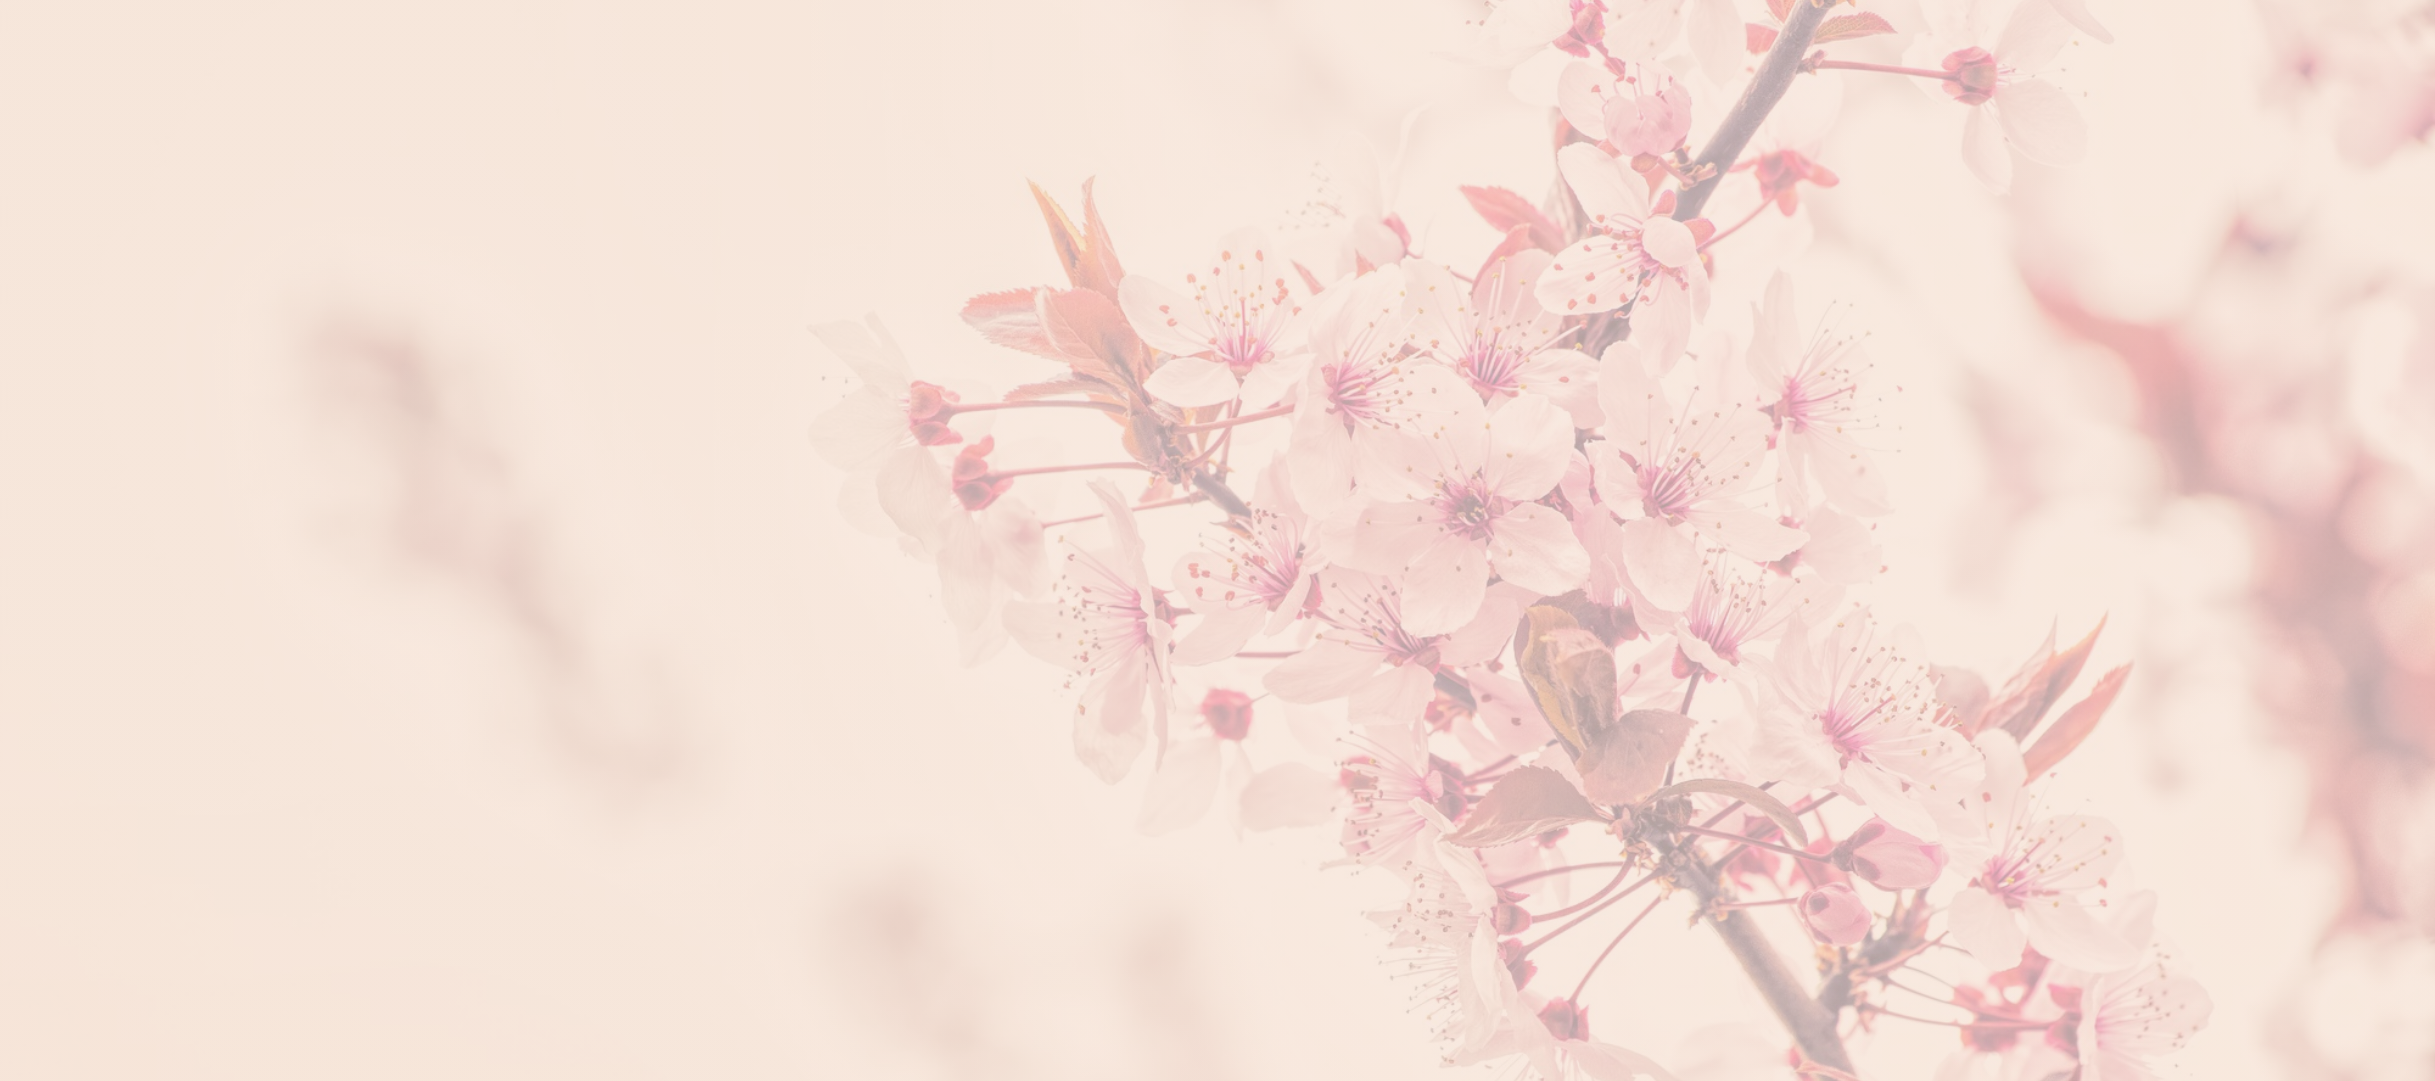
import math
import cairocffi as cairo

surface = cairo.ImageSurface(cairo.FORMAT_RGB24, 2435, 1081)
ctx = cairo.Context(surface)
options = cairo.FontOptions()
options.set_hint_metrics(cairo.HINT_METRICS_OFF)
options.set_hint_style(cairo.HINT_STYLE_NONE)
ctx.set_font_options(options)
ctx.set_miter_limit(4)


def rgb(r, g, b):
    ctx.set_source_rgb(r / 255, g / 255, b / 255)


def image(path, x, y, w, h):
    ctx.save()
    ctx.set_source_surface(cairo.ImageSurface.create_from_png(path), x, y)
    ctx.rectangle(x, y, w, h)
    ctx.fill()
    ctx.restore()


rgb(255, 255, 255)
ctx.paint()
image('image0.png', 0, 0, 2435, 1081)
surface.write_to_png('render.png')
